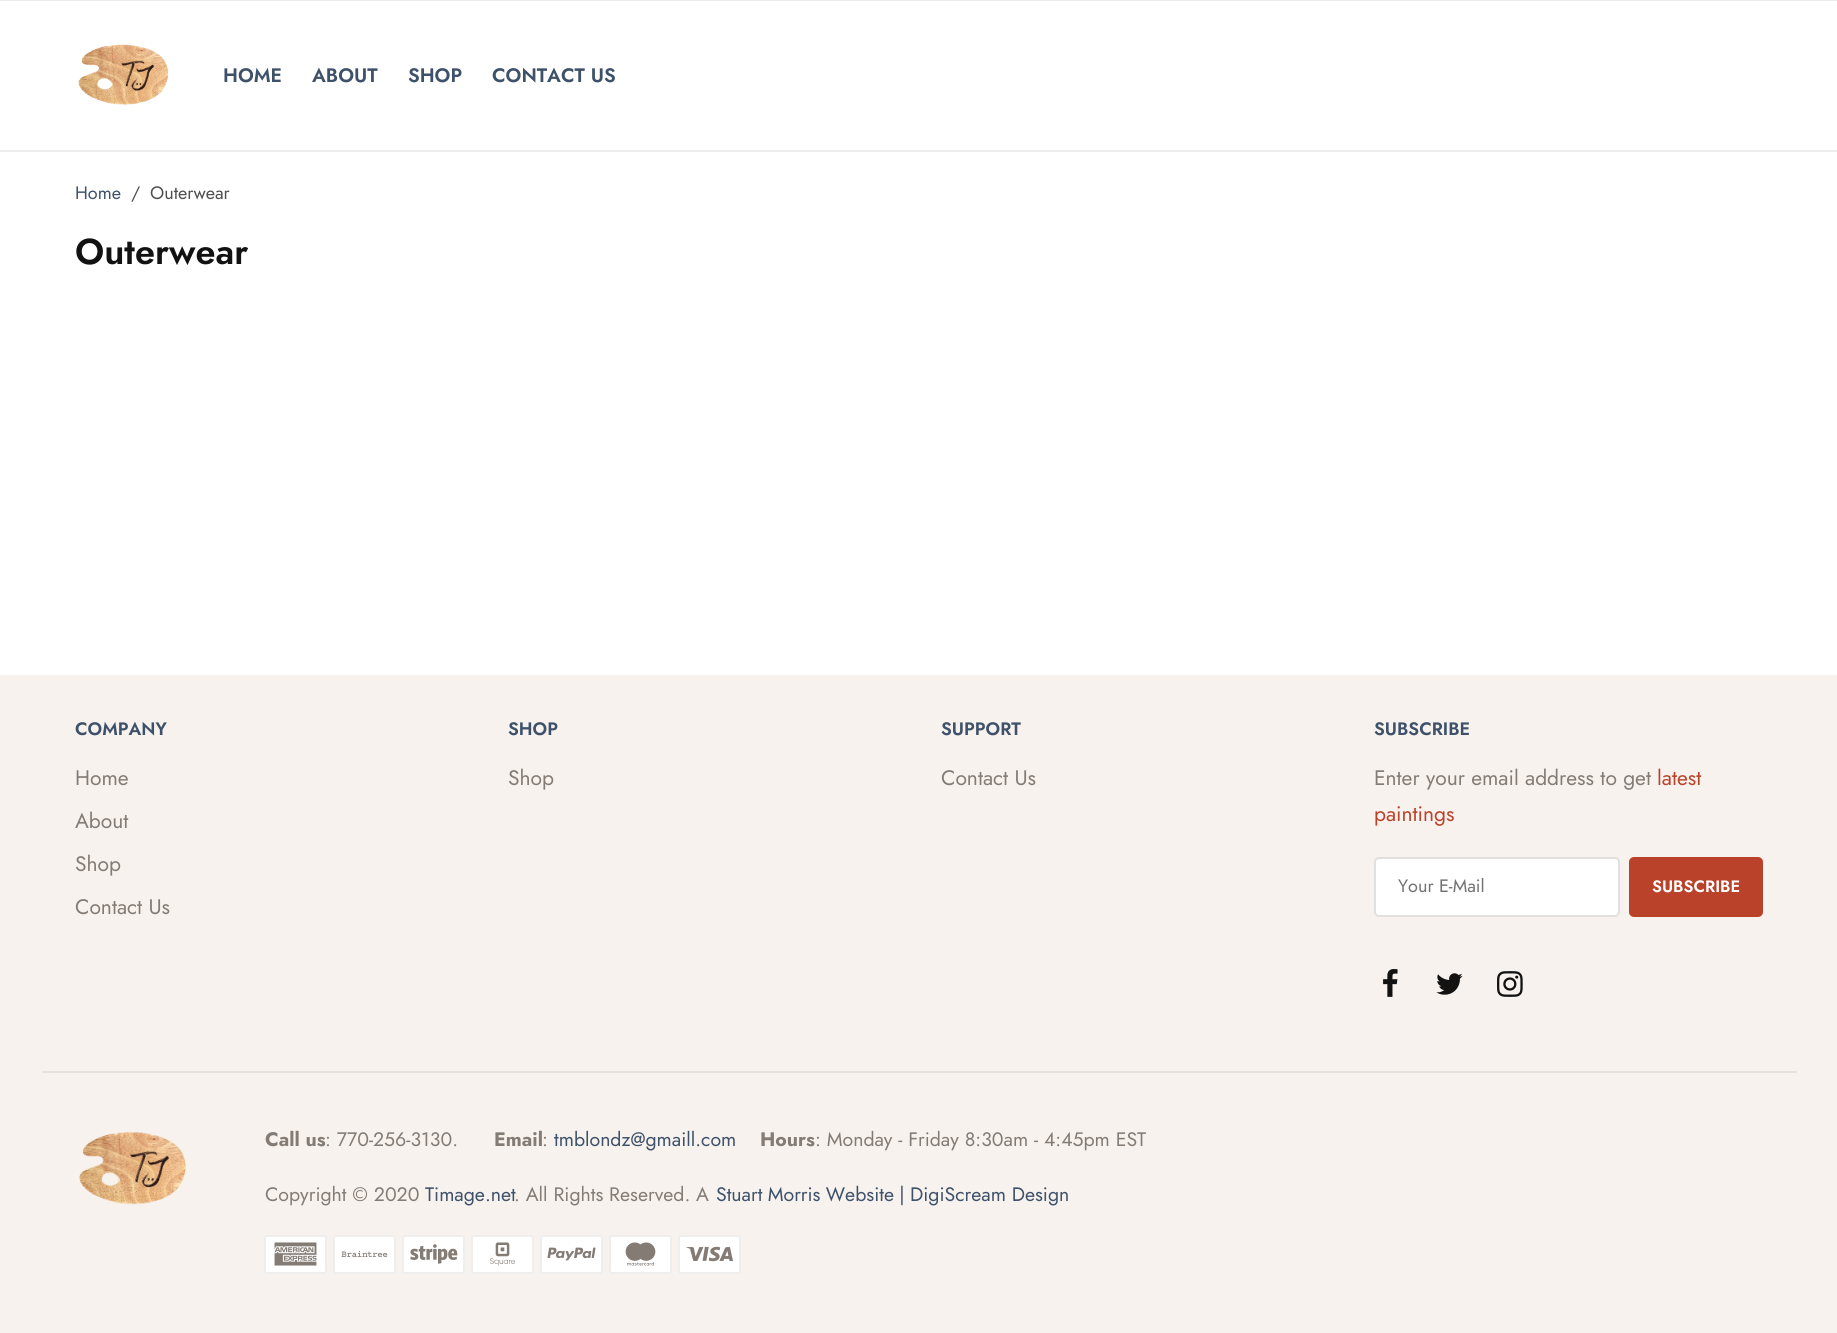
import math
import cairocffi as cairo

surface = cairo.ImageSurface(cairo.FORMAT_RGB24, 1837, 1333)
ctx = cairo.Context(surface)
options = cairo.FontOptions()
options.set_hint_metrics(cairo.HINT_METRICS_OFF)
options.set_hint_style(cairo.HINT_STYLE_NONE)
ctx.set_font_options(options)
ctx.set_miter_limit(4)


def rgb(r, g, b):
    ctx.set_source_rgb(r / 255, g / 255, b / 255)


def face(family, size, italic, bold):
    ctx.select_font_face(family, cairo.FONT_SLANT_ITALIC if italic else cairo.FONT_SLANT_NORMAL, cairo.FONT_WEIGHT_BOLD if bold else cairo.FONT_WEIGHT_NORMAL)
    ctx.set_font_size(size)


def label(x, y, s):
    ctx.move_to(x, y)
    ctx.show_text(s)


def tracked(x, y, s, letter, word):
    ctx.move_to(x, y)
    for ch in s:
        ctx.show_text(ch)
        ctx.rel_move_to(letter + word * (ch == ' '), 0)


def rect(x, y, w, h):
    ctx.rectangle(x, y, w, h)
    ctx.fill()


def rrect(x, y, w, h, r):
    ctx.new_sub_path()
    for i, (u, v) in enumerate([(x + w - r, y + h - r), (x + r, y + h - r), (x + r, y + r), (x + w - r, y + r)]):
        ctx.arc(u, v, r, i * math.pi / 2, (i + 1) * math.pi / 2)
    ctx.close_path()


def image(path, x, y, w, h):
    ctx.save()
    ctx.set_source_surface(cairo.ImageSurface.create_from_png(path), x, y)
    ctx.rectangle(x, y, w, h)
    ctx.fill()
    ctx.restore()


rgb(255, 255, 255)
ctx.paint()
rgb(235, 235, 235)
rect(0, 0, 1837, 1)
rgb(237, 237, 237)
rect(0, 150, 1837, 2)
image('image0.png', 78, 44, 91, 61)
face('Jost SemiBold', 19.5, 0, 0)
rgb(62, 81, 106)
label(223, 82, 'HOME')
label(312, 82, 'ABOUT')
label(408, 82, 'SHOP')
label(492, 82, 'CONTACT US')
face('Jost', 18, 0, 0)
label(75, 199, 'Home')
rgb(79, 79, 79)
label(131, 199, '/')
label(150, 199, 'Outerwear')
face('Jost SemiBold', 36, 0, 0)
rgb(18, 18, 18)
label(75, 264, 'Outerwear')
rgb(247, 242, 237)
rect(0, 675, 1837, 658)
face('Jost SemiBold', 18, 0, 0)
rgb(62, 81, 106)
label(75, 735, 'COMPANY')
face('Jost', 21, 0, 0)
rgb(132, 123, 117)
label(75, 785, 'Home')
label(75, 828, 'About')
label(75, 871, 'Shop')
label(75, 914, 'Contact Us')
face('Jost SemiBold', 18, 0, 0)
rgb(62, 81, 106)
label(508, 735, 'SHOP')
face('Jost', 21, 0, 0)
rgb(132, 123, 117)
label(508, 785, 'Shop')
face('Jost SemiBold', 18, 0, 0)
rgb(62, 81, 106)
label(941, 735, 'SUPPORT')
face('Jost', 21, 0, 0)
rgb(132, 123, 117)
label(941, 785, 'Contact Us')
face('Jost SemiBold', 18, 0, 0)
rgb(62, 81, 106)
label(1374, 735, 'SUBSCRIBE')
face('Jost', 21, 0, 0)
rgb(132, 123, 117)
label(1374, 785, 'Enter your email address to get')
rgb(186, 65, 42)
label(1657, 785, 'latest')
label(1374, 821, 'paintings')
rgb(255, 255, 255)
rrect(1375, 858, 244, 58, 4)
ctx.fill_preserve()
rgb(224, 224, 224)
ctx.stroke()
face('Jost', 18, 0, 0)
rgb(113, 113, 113)
label(1398, 892, 'Your E-Mail')
rgb(186, 65, 42)
rrect(1629, 857, 134, 60, 5)
ctx.fill()
face('Jost SemiBold', 16.5, 0, 0)
rgb(255, 255, 255)
label(1652, 892, 'SUBSCRIBE')
image('image1.png', 1383, 969, 15, 28)
image('image2.png', 1436, 973, 27, 22)
image('image3.png', 1497, 971, 26, 26)
rgb(230, 225, 220)
rect(42, 1071, 1755, 2)
image('image4.png', 79, 1131, 107, 74)
face('Jost', 19.5, 0, 1)
rgb(132, 123, 117)
label(265, 1146, 'Call us')
face('Jost', 19.5, 0, 0)
label(325, 1146, ': 770-256-3130.')
face('Jost', 19.5, 0, 1)
label(494, 1146, 'Email')
face('Jost', 19.5, 0, 0)
label(542, 1146, ':')
rgb(62, 81, 106)
label(554, 1146, 'tmblondz@gmaill.com')
face('Jost', 19.5, 0, 1)
rgb(132, 123, 117)
label(760, 1146, 'Hours')
face('Jost', 19.5, 0, 0)
label(815, 1146, ': Monday - Friday 8:30am - 4:45pm EST')
label(265, 1201, 'Copyright © 2020')
rgb(62, 81, 106)
label(425, 1201, 'Timage.net')
rgb(132, 123, 117)
label(514, 1201, '. All Rights Reserved. A')
rgb(62, 81, 106)
tracked(716, 1201, 'Stuart Morris Website |', 0, -0.5)
label(910, 1201, 'DigiScream Design')
rgb(255, 255, 255)
rrect(265, 1236, 61, 37, 2)
ctx.fill_preserve()
rgb(238, 238, 238)
ctx.stroke()
image('image5.png', 274, 1242, 43, 24)
rgb(255, 255, 255)
rrect(334, 1236, 61, 37, 2)
ctx.fill_preserve()
rgb(238, 238, 238)
ctx.stroke()
image('image6.png', 341, 1250, 47, 8)
rgb(255, 255, 255)
rrect(403, 1236, 61, 37, 2)
ctx.fill_preserve()
rgb(238, 238, 238)
ctx.stroke()
image('image7.png', 410, 1244, 48, 20)
rgb(255, 255, 255)
rrect(472, 1236, 61, 37, 2)
ctx.fill_preserve()
rgb(238, 238, 238)
ctx.stroke()
image('image8.png', 490, 1242, 25, 24)
rgb(255, 255, 255)
rrect(541, 1236, 61, 37, 2)
ctx.fill_preserve()
rgb(238, 238, 238)
ctx.stroke()
image('image9.png', 547, 1247, 49, 14)
rgb(255, 255, 255)
rrect(610, 1236, 61, 37, 2)
ctx.fill_preserve()
rgb(238, 238, 238)
ctx.stroke()
image('image10.png', 625, 1242, 31, 24)
rgb(255, 255, 255)
rrect(679, 1236, 61, 37, 2)
ctx.fill_preserve()
rgb(238, 238, 238)
ctx.stroke()
image('image11.png', 686, 1246, 47, 16)
surface.write_to_png('render.png')
